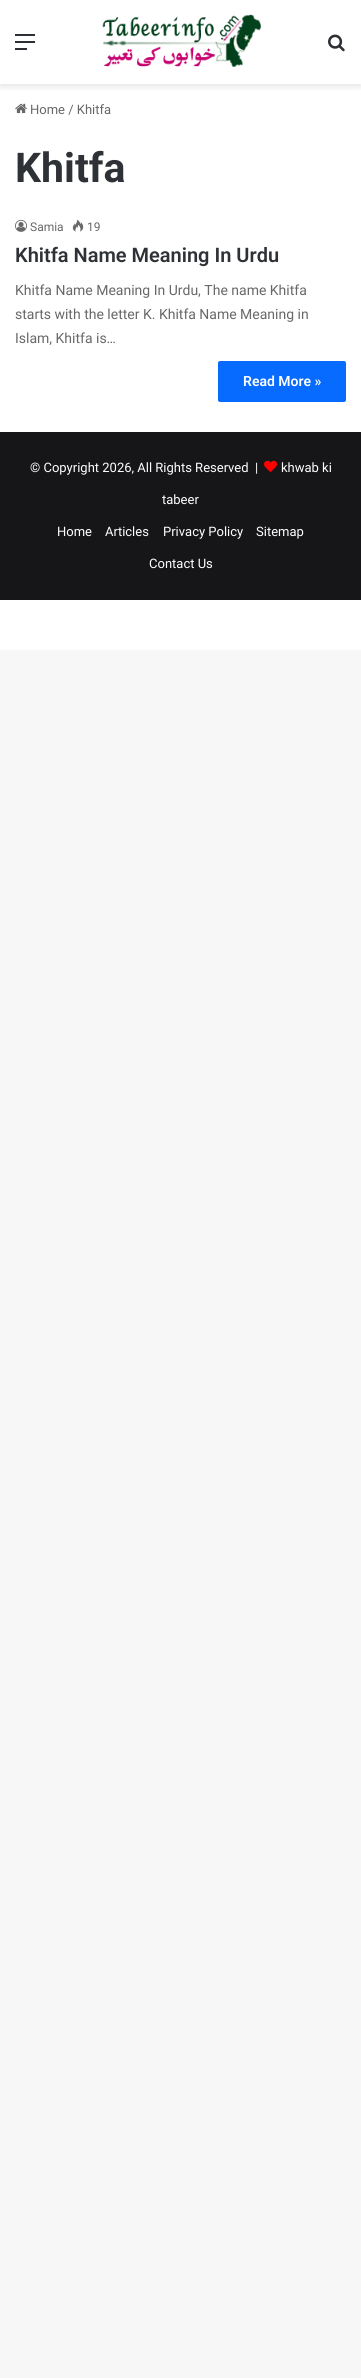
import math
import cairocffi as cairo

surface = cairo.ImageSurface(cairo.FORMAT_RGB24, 361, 2378)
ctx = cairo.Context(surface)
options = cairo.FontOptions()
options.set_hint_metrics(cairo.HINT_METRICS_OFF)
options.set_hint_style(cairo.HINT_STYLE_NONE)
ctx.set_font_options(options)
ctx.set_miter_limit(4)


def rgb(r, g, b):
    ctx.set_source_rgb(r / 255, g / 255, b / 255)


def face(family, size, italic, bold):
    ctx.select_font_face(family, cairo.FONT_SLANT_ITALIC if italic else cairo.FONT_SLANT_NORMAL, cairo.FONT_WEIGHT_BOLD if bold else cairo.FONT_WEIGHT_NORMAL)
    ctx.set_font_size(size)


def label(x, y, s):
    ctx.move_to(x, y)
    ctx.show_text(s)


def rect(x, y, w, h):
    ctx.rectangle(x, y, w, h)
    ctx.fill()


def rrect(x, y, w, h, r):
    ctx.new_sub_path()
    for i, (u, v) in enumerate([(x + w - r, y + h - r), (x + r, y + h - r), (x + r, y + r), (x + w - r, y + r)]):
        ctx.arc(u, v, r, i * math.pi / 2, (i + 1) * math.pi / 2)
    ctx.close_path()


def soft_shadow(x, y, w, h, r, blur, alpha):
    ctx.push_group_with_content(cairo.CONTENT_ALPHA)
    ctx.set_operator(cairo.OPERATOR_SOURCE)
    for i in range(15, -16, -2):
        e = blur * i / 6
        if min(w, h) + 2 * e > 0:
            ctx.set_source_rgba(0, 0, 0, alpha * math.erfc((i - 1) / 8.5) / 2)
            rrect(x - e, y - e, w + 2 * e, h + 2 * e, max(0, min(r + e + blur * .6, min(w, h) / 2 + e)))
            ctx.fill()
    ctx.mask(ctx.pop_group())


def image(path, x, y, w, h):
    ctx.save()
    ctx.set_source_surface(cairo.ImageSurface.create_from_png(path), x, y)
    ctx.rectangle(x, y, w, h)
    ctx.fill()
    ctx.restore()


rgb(247, 247, 247)
ctx.paint()
rgb(255, 255, 255)
rect(0, 0, 361, 650)
ctx.save()
ctx.rectangle(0, 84, 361, 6)
ctx.clip()
rgb(0, 0, 0)
soft_shadow(0, 3, 361, 84, 0, 3.5, 0.1)
ctx.restore()
rgb(44, 47, 52)
rect(15, 41, 20, 2)
rect(15, 34, 20, 2)
rect(15, 48, 12, 2)
image('image0.png', 102, 14, 159, 53)
image('image1.png', 328, 34, 17, 18)
image('image2.png', 15, 103, 12, 11)
face('Roboto', 13, 0, 0)
rgb(104, 104, 104)
label(30, 114, 'Home / Khitfa')
face('Roboto', 41, 0, 1)
rgb(46, 49, 54)
label(15, 182, 'Khitfa')
image('image3.png', 15, 219, 12, 13)
face('Roboto', 12, 0, 0)
rgb(104, 104, 104)
label(30, 231, 'Samia')
image('image4.png', 72, 219, 12, 13)
label(87, 231, '19')
face('Roboto SemiBold', 20, 0, 0)
rgb(46, 49, 54)
label(15, 262, 'Khitfa Name Meaning In Urdu')
face('Roboto', 14, 0, 0)
rgb(104, 104, 104)
label(15, 295, 'Khitfa Name Meaning In Urdu, The name Khitfa')
label(15, 319, 'starts with the letter K. Khitfa Name Meaning in')
label(15, 343, 'Islam, Khitfa is…')
rgb(8, 107, 255)
rrect(218, 361, 128, 41, 2)
ctx.fill()
face('Roboto SemiBold', 14, 0, 0)
rgb(255, 255, 255)
label(243, 386, 'Read More »')
rgb(22, 22, 25)
rect(0, 432, 361, 168)
face('Roboto', 13, 0, 0)
rgb(255, 255, 255)
label(30, 472, '© Copyright 2026, All Rights Reserved  |')
image('image5.png', 264, 460, 13, 12)
label(281, 472, 'khwab ki')
label(162, 504, 'tabeer')
label(57, 536, 'Home')
label(105, 536, 'Articles')
label(163, 536, 'Privacy Policy')
label(256, 536, 'Sitemap')
label(149, 568, 'Contact Us')
surface.write_to_png('render.png')
